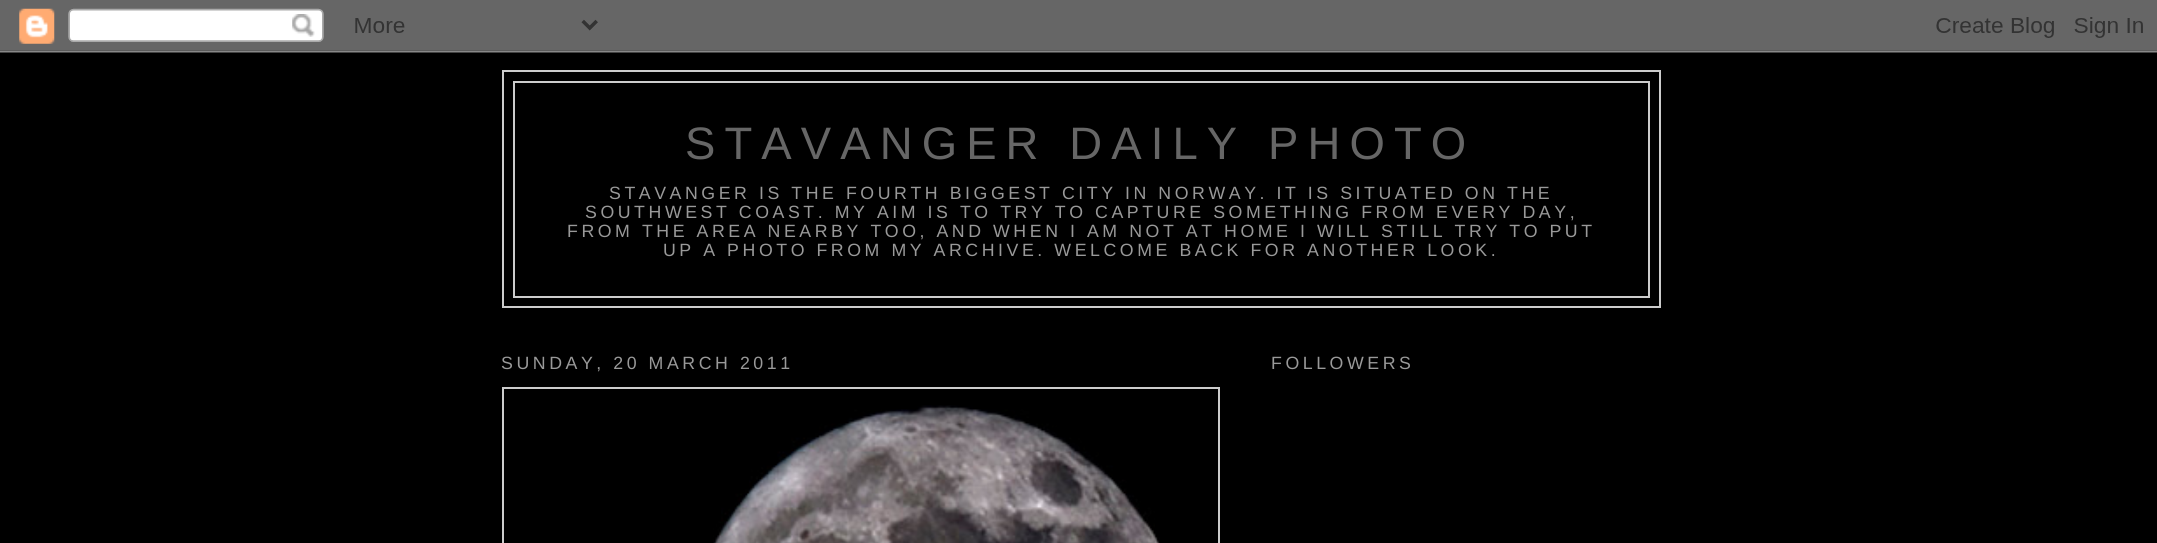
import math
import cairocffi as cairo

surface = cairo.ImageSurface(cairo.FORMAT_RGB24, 2157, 543)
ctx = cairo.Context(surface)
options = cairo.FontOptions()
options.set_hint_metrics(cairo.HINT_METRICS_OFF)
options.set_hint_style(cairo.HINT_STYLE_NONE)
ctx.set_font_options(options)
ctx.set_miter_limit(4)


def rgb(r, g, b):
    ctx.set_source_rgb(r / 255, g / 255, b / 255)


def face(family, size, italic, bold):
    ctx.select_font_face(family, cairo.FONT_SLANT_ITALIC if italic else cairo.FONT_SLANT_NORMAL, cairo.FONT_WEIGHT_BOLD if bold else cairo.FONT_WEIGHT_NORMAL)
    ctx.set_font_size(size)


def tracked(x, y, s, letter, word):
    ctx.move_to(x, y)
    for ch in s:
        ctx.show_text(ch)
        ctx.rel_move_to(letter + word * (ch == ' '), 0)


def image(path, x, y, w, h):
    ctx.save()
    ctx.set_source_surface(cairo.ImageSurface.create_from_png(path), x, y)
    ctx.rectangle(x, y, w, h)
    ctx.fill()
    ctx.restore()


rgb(0, 0, 0)
ctx.paint()
image('image0.png', 0, 0, 2157, 53)
ctx.rectangle(503, 71, 1157, 236)
rgb(204, 204, 204)
ctx.stroke()
ctx.rectangle(514, 82, 1135, 215)
ctx.stroke()
face('Liberation Sans', 45.5, 0, 0)
rgb(102, 102, 102)
tracked(685, 159, 'STAVANGER DAILY PHOTO', 9.1, 0)
face('Liberation Sans', 17.75, 0, 0)
rgb(153, 153, 153)
tracked(609, 199, 'STAVANGER IS THE FOURTH BIGGEST CITY IN NORWAY. IT IS SITUATED ON THE', 3.55, 0)
tracked(585, 218, 'SOUTHWEST COAST. MY AIM IS TO TRY TO CAPTURE SOMETHING FROM EVERY DAY,', 3.55, 0)
tracked(567, 237, 'FROM THE AREA NEARBY TOO, AND WHEN I AM NOT AT HOME I WILL STILL TRY TO PUT', 3.55, 0)
tracked(663, 256, 'UP A PHOTO FROM MY ARCHIVE. WELCOME BACK FOR ANOTHER LOOK.', 3.55, 0)
tracked(501, 369, 'SUNDAY, 20 MARCH 2011', 3.55, 0)
ctx.rectangle(503, 388, 716, 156)
rgb(204, 204, 204)
ctx.stroke()
image('image1.png', 713, 405, 447, 138)
rgb(153, 153, 153)
tracked(1271, 369, 'FOLLOWERS', 3.55, 0)
surface.write_to_png('render.png')
